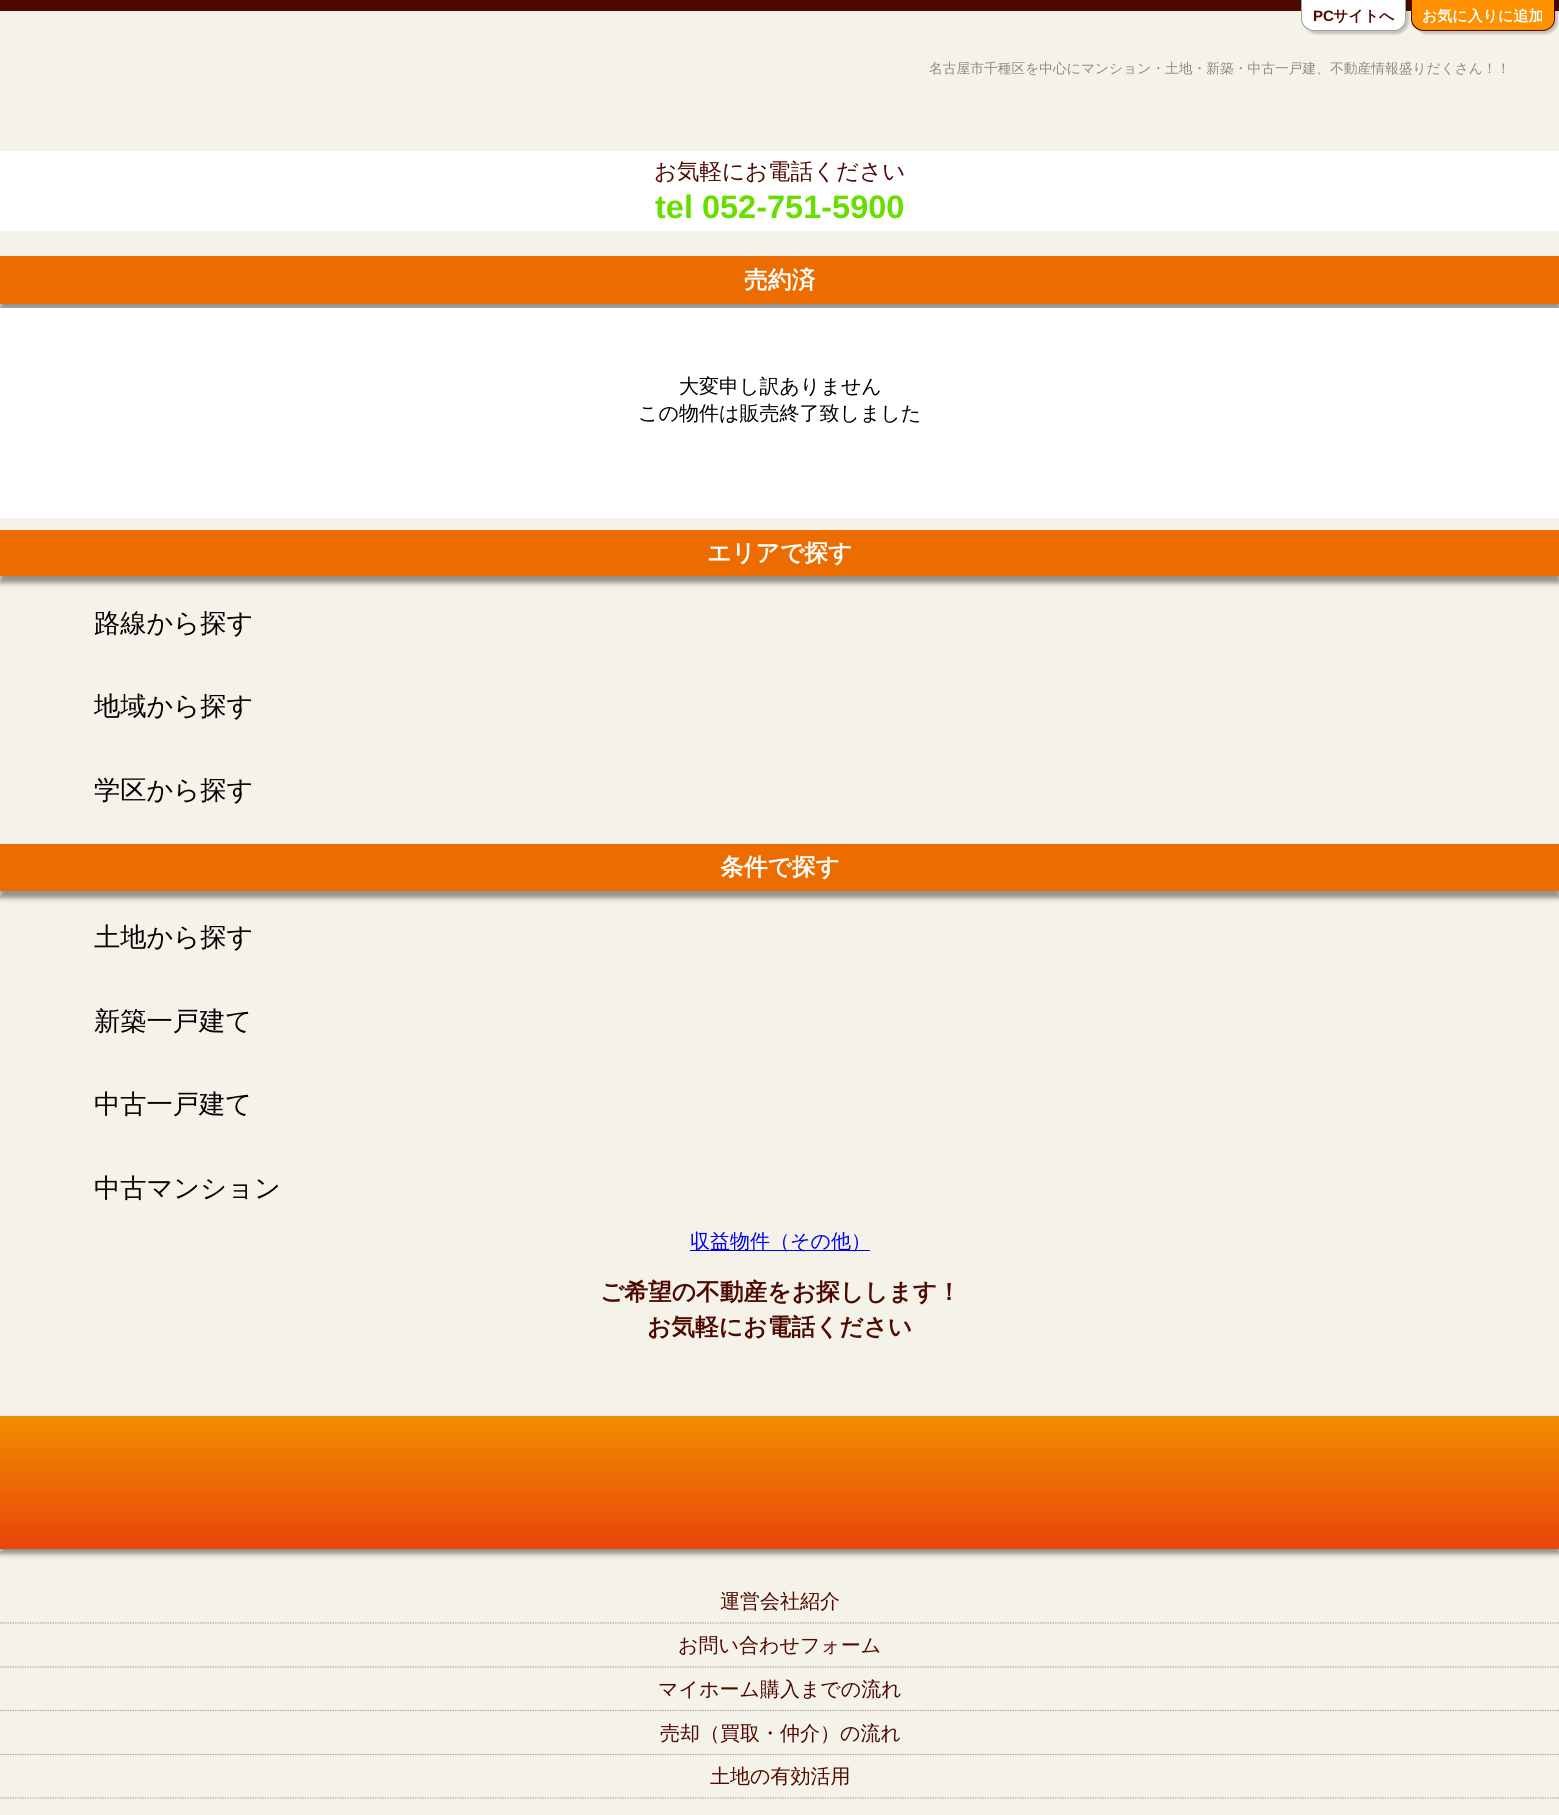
import math
import cairocffi as cairo

surface = cairo.ImageSurface(cairo.FORMAT_RGB24, 1559, 1815)
ctx = cairo.Context(surface)
options = cairo.FontOptions()
options.set_hint_metrics(cairo.HINT_METRICS_OFF)
options.set_hint_style(cairo.HINT_STYLE_NONE)
ctx.set_font_options(options)
ctx.set_miter_limit(4)


def rgb(r, g, b):
    ctx.set_source_rgb(r / 255, g / 255, b / 255)


def face(family, size, italic, bold):
    ctx.select_font_face(family, cairo.FONT_SLANT_ITALIC if italic else cairo.FONT_SLANT_NORMAL, cairo.FONT_WEIGHT_BOLD if bold else cairo.FONT_WEIGHT_NORMAL)
    ctx.set_font_size(size)


def label(x, y, s):
    ctx.move_to(x, y)
    ctx.show_text(s)


def rect(x, y, w, h):
    ctx.rectangle(x, y, w, h)
    ctx.fill()


def rrect(x, y, w, h, r):
    ctx.new_sub_path()
    for i, (u, v) in enumerate([(x + w - r, y + h - r), (x + r, y + h - r), (x + r, y + r), (x + w - r, y + r)]):
        ctx.arc(u, v, r, i * math.pi / 2, (i + 1) * math.pi / 2)
    ctx.close_path()


def soft_shadow(x, y, w, h, r, blur, alpha):
    ctx.push_group_with_content(cairo.CONTENT_ALPHA)
    ctx.set_operator(cairo.OPERATOR_SOURCE)
    for i in range(15, -16, -2):
        e = blur * i / 6
        if min(w, h) + 2 * e > 0:
            ctx.set_source_rgba(0, 0, 0, alpha * math.erfc((i - 1) / 8.5) / 2)
            rrect(x - e, y - e, w + 2 * e, h + 2 * e, max(0, min(r + e + blur * .6, min(w, h) / 2 + e)))
            ctx.fill()
    ctx.mask(ctx.pop_group())


rgb(245, 242, 233)
ctx.paint()
rgb(78, 9, 0)
rect(0, 0, 1559, 11)
rgb(0, 0, 0)
soft_shadow(1414, -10, 144, 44, 13, 1, 0.2)
rgb(255, 144, 0)
rrect(1411, -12, 144, 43, 13)
ctx.fill()
rgb(78, 9, 0)
ctx.set_fill_rule(cairo.FILL_RULE_EVEN_ODD)
ctx.new_path()
ctx.move_to(1424, -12)
ctx.line_to(1542, -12)
ctx.curve_to(1549, -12, 1555, -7, 1555, 0)
ctx.line_to(1555, 19)
ctx.curve_to(1555, 26, 1549, 31, 1542, 31)
ctx.line_to(1424, 31)
ctx.curve_to(1417, 31, 1411, 26, 1411, 19)
ctx.line_to(1411, 0)
ctx.curve_to(1411, -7, 1417, -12, 1424, -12)
ctx.close_path()
ctx.move_to(1424, -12)
ctx.line_to(1542, -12)
ctx.curve_to(1549, -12, 1554, -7, 1554, 0)
ctx.line_to(1554, 19)
ctx.curve_to(1554, 25, 1549, 30, 1542, 30)
ctx.line_to(1424, 30)
ctx.curve_to(1418, 30, 1412, 25, 1412, 19)
ctx.line_to(1412, 0)
ctx.curve_to(1412, -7, 1418, -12, 1424, -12)
ctx.close_path()
ctx.fill()
rgb(0, 0, 0)
soft_shadow(1304, -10, 105, 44, 13, 1, 0.2)
rgb(255, 255, 255)
rrect(1301, -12, 105, 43, 13)
ctx.fill()
rgb(162, 162, 162)
ctx.new_path()
ctx.move_to(1314, -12)
ctx.line_to(1394, -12)
ctx.curve_to(1401, -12, 1406, -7, 1406, 0)
ctx.line_to(1406, 19)
ctx.curve_to(1406, 26, 1401, 31, 1394, 31)
ctx.line_to(1314, 31)
ctx.curve_to(1307, 31, 1301, 26, 1301, 19)
ctx.line_to(1301, 0)
ctx.curve_to(1301, -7, 1307, -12, 1314, -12)
ctx.close_path()
ctx.move_to(1314, -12)
ctx.line_to(1394, -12)
ctx.curve_to(1400, -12, 1405, -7, 1405, 0)
ctx.line_to(1405, 19)
ctx.curve_to(1405, 25, 1400, 30, 1394, 30)
ctx.line_to(1314, 30)
ctx.curve_to(1308, 30, 1302, 25, 1302, 19)
ctx.line_to(1302, 0)
ctx.curve_to(1302, -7, 1308, -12, 1314, -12)
ctx.close_path()
ctx.fill()
face('Liberation Sans', 15, 0, 1)
rgb(78, 9, 0)
label(1313, 21, 'PC')
face('WenQuanYi Zen Hei', 15, 0, 1)
label(1333, 21, 'サイトへ')
rgb(255, 255, 255)
label(1422, 21, 'お気に入りに追加')
face('WenQuanYi Zen Hei Medium', 13.75, 0, 0)
rgb(137, 137, 137)
label(929, 73, '名古屋市千種区を中心にマンション・土地・新築・中古一戸建、不動産情報盛りだくさん！！')
rgb(255, 255, 255)
rect(0, 151, 1559, 80)
face('WenQuanYi Zen Hei Medium', 22.5, 0, 0)
rgb(78, 9, 0)
label(654, 179, 'お気軽にお電話ください')
face('Liberation Sans', 32.5, 0, 1)
rgb(104, 221, 0)
label(655, 218, 'tel 052-751-5900')
rgb(0, 0, 0)
soft_shadow(0, 263, 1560, 47, 0, 2.5, 0.4)
rgb(237, 108, 0)
rect(0, 256, 1559, 48)
face('WenQuanYi Zen Hei', 23.75, 0, 1)
rgb(255, 255, 255)
label(744, 288, '売約済')
rect(0, 308, 1559, 210)
face('WenQuanYi Zen Hei Medium', 20, 0, 0)
rgb(0, 0, 0)
label(679, 393, '大変申し訳ありません')
label(638, 420, 'この物件は販売終了致しました')
rgb(0, 0, 0)
soft_shadow(0, 536, 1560, 47, 0, 2.5, 0.4)
rgb(237, 108, 0)
rect(0, 530, 1559, 46)
face('WenQuanYi Zen Hei', 23.75, 0, 1)
rgb(255, 255, 255)
label(707, 561, 'エリアで探す')
face('WenQuanYi Zen Hei Medium', 26.25, 0, 0)
rgb(0, 0, 0)
label(94, 632, '路線から探す')
label(94, 715, '地域から探す')
label(94, 799, '学区から探す')
rgb(0, 0, 0)
soft_shadow(0, 850, 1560, 48, 0, 2.5, 0.4)
rgb(237, 108, 0)
rect(0, 844, 1559, 47)
face('WenQuanYi Zen Hei', 23.75, 0, 1)
rgb(255, 255, 255)
label(720, 875, '条件で探す')
face('WenQuanYi Zen Hei Medium', 26.25, 0, 0)
rgb(0, 0, 0)
label(94, 946, '土地から探す')
label(94, 1030, '新築一戸建て')
label(94, 1113, '中古一戸建て')
label(94, 1197, '中古マンション')
rgb(0, 0, 238)
rect(690, 1250, 180, 1)
face('WenQuanYi Zen Hei Medium', 20, 0, 0)
label(690, 1248, '収益物件（その他）')
face('WenQuanYi Zen Hei', 23.75, 0, 1)
rgb(78, 9, 0)
label(600, 1300, 'ご希望の不動産をお探しします！')
label(647, 1335, 'お気軽にお電話ください')
rgb(0, 0, 0)
soft_shadow(0, 1421, 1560, 133, 0, 2.5, 0.4)
gradient = cairo.LinearGradient(780, 1416, 780, 1549)
gradient.add_color_stop_rgba(0.01, 0.945, 0.553, 0, 1)
gradient.add_color_stop_rgba(1, 0.914, 0.271, 0.039, 1)
ctx.set_source(gradient)
rect(0, 1416, 1559, 133)
ctx.new_path()
ctx.move_to(0, 1623)
ctx.line_to(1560, 1623)
rgb(159, 160, 160)
ctx.set_line_width(1.2)
ctx.set_dash([1.25, 1.25])
ctx.stroke()
face('WenQuanYi Zen Hei Medium', 20, 0, 0)
rgb(78, 9, 0)
label(720, 1608, '運営会社紹介')
ctx.new_path()
ctx.move_to(0, 1667)
ctx.line_to(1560, 1667)
rgb(159, 160, 160)
ctx.stroke()
rgb(78, 9, 0)
label(678, 1652, 'お問い合わせフォーム')
ctx.new_path()
ctx.move_to(0, 1710.5)
ctx.line_to(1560, 1710.5)
rgb(159, 160, 160)
ctx.stroke()
rgb(78, 9, 0)
label(658, 1696, 'マイホーム購入までの流れ')
ctx.new_path()
ctx.move_to(0, 1754.5)
ctx.line_to(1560, 1754.5)
rgb(159, 160, 160)
ctx.stroke()
rgb(78, 9, 0)
label(660, 1740, '売却（買取・仲介）の流れ')
ctx.new_path()
ctx.move_to(0, 1798)
ctx.line_to(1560, 1798)
rgb(159, 160, 160)
ctx.stroke()
rgb(78, 9, 0)
label(710, 1783, '土地の有効活用')
surface.write_to_png('render.png')
